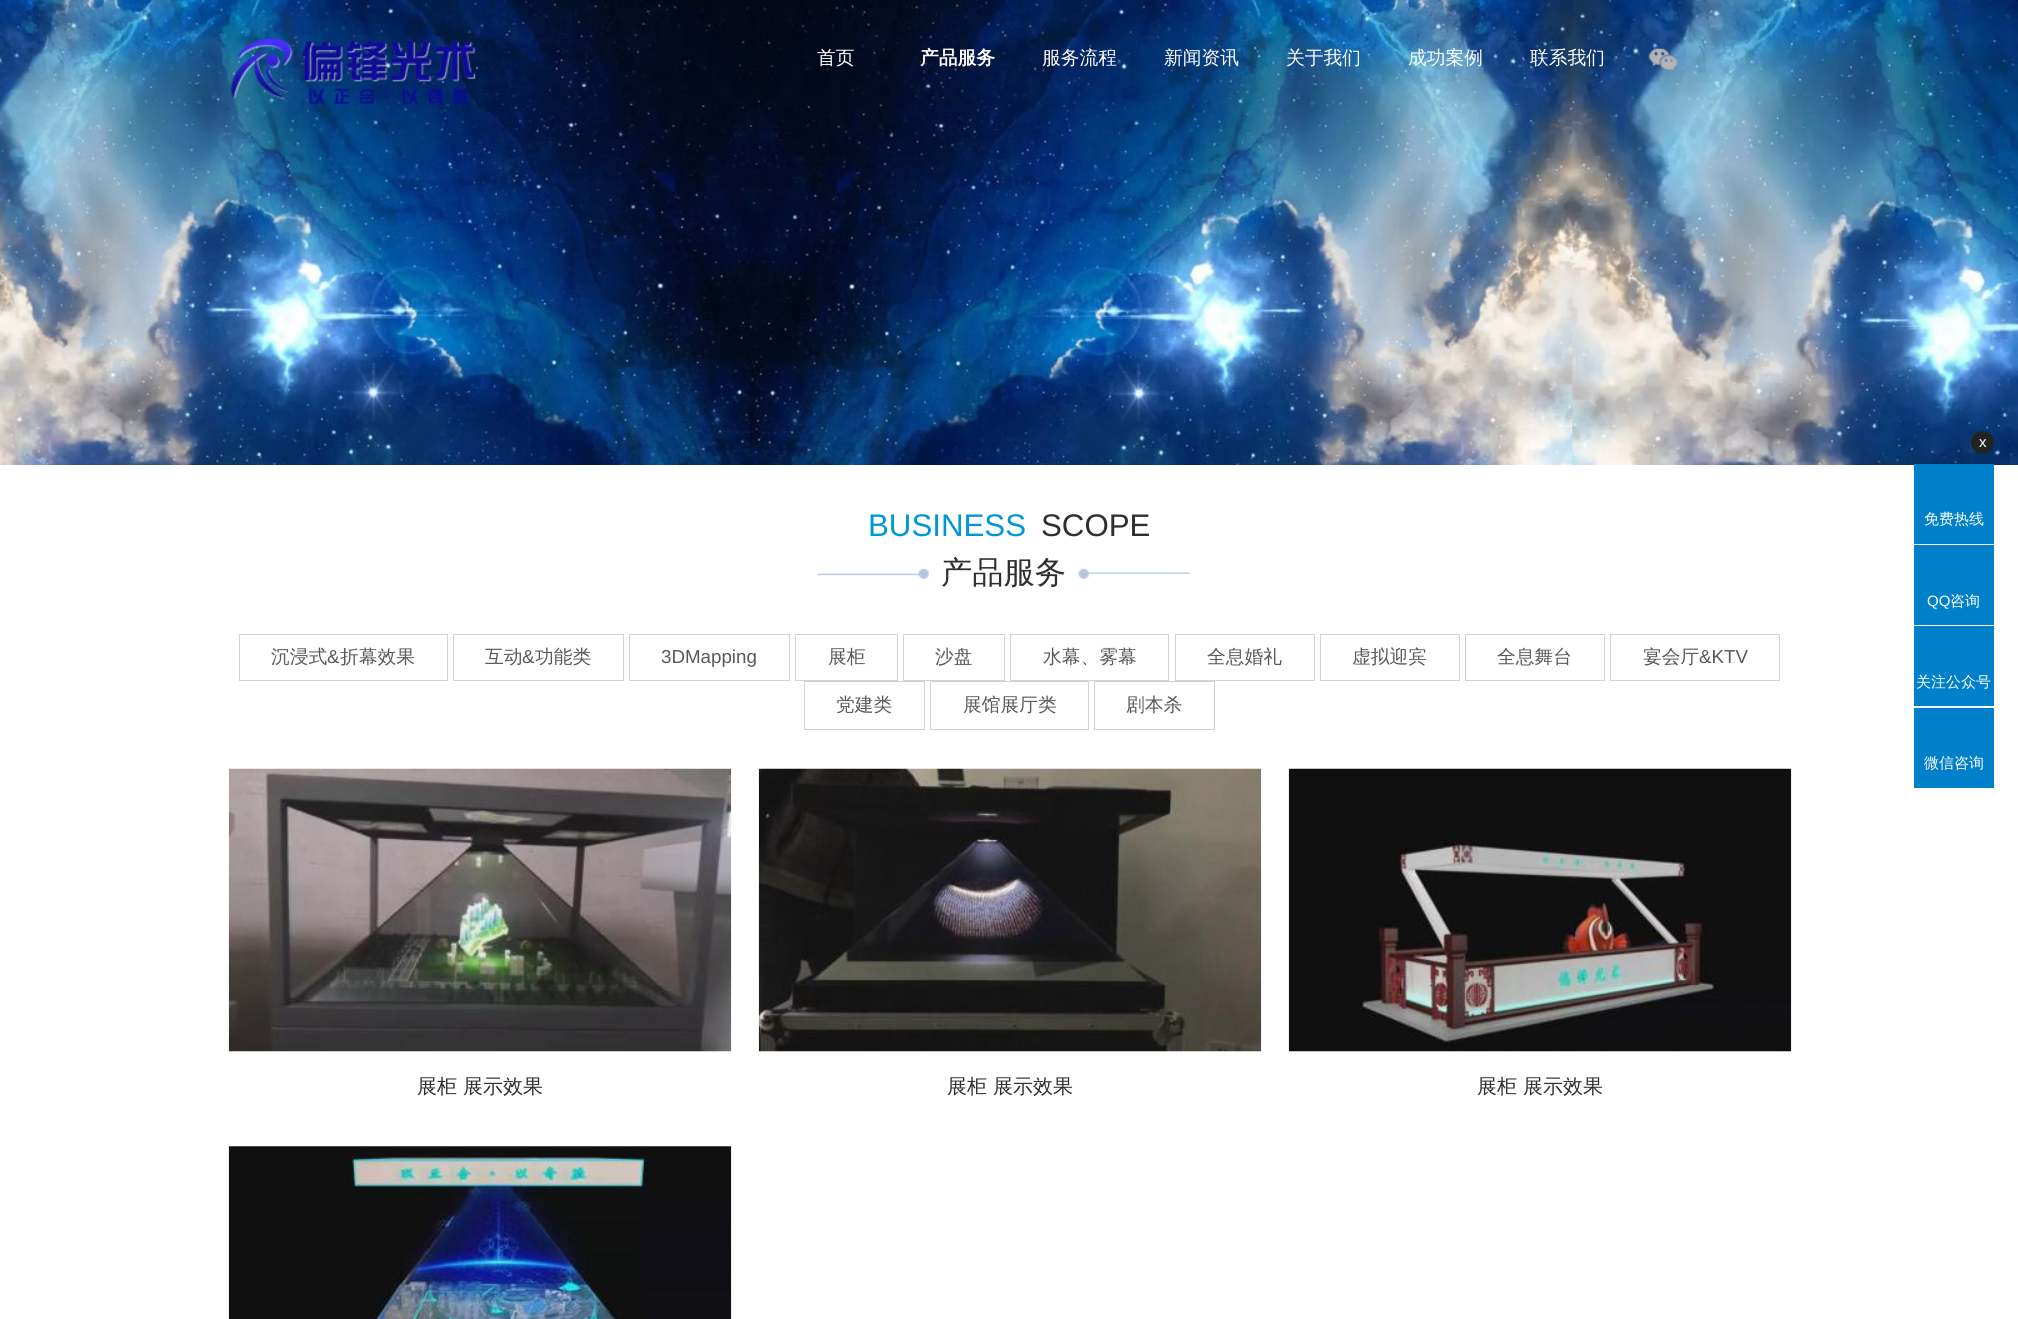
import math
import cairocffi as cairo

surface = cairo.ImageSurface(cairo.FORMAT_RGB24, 2018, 1319)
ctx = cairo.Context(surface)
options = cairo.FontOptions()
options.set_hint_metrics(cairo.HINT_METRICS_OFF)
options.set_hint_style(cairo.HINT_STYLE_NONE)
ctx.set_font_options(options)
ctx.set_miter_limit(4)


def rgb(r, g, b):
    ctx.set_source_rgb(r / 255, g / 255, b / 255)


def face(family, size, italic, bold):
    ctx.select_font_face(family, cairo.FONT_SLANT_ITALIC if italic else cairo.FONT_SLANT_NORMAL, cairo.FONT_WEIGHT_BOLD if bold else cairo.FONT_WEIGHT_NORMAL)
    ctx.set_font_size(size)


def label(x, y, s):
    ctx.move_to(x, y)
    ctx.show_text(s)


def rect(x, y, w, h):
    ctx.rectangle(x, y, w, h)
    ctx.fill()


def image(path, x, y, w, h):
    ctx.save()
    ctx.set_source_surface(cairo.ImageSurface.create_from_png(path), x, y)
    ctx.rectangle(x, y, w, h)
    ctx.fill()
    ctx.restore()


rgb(255, 255, 255)
ctx.paint()
image('image0.png', 0, 0, 2018, 465)
image('image1.png', 231, 38, 245, 66)
face('WenQuanYi Zen Hei Medium', 18.75, 0, 0)
rgb(255, 255, 255)
label(817, 64, '首页')
face('WenQuanYi Zen Hei', 18.75, 0, 1)
label(920, 64, '产品服务')
face('WenQuanYi Zen Hei Medium', 18.75, 0, 0)
label(1042, 64, '服务流程')
label(1164, 64, '新闻资讯')
label(1286, 64, '关于我们')
label(1408, 64, '成功案例')
label(1530, 64, '联系我们')
image('image2.png', 1648, 48, 30, 22)
face('Liberation Sans', 31.25, 0, 0)
rgb(0, 151, 217)
label(868, 536, 'BUSINESS')
rgb(47, 47, 47)
label(1041, 536, 'SCOPE')
image('image3.png', 817, 568, 112, 11)
face('WenQuanYi Zen Hei Medium', 31.25, 0, 0)
label(941, 583, '产品服务')
image('image4.png', 1078, 568, 112, 11)
ctx.rectangle(239.5, 634.5, 208, 46)
rgb(210, 210, 210)
ctx.set_line_width(1)
ctx.stroke()
face('WenQuanYi Zen Hei Medium', 18.75, 0, 0)
rgb(89, 89, 89)
label(271, 663, '沉浸式')
face('Liberation Sans', 18.75, 0, 0)
label(327, 663, '&')
face('WenQuanYi Zen Hei Medium', 18.75, 0, 0)
label(340, 663, '折幕效果')
ctx.rectangle(453.5, 634.5, 170, 46)
rgb(210, 210, 210)
ctx.stroke()
rgb(89, 89, 89)
label(485, 663, '互动')
face('Liberation Sans', 18.75, 0, 0)
label(522, 663, '&')
face('WenQuanYi Zen Hei Medium', 18.75, 0, 0)
label(535, 663, '功能类')
ctx.rectangle(629.5, 634.5, 160, 46)
rgb(210, 210, 210)
ctx.stroke()
face('Liberation Sans', 18.75, 0, 0)
rgb(89, 89, 89)
label(661, 663, '3DMapping')
ctx.rectangle(795.5, 634.5, 102, 46)
rgb(210, 210, 210)
ctx.stroke()
face('WenQuanYi Zen Hei Medium', 18.75, 0, 0)
rgb(89, 89, 89)
label(828, 663, '展柜')
ctx.rectangle(903.5, 634.5, 101, 46)
rgb(210, 210, 210)
ctx.stroke()
rgb(89, 89, 89)
label(935, 663, '沙盘')
ctx.rectangle(1010.5, 634.5, 158, 46)
rgb(210, 210, 210)
ctx.stroke()
rgb(89, 89, 89)
label(1043, 663, '水幕、雾幕')
ctx.rectangle(1175.5, 634.5, 139, 46)
rgb(210, 210, 210)
ctx.stroke()
rgb(89, 89, 89)
label(1207, 663, '全息婚礼')
ctx.rectangle(1320.5, 634.5, 139, 46)
rgb(210, 210, 210)
ctx.stroke()
rgb(89, 89, 89)
label(1352, 663, '虚拟迎宾')
ctx.rectangle(1465.5, 634.5, 139, 46)
rgb(210, 210, 210)
ctx.stroke()
rgb(89, 89, 89)
label(1497, 663, '全息舞台')
ctx.rectangle(1610.5, 634.5, 169, 46)
rgb(210, 210, 210)
ctx.stroke()
rgb(89, 89, 89)
label(1643, 663, '宴会厅')
face('Liberation Sans', 18.75, 0, 0)
label(1699, 663, '&KTV')
ctx.rectangle(804.5, 681.5, 120, 48)
rgb(210, 210, 210)
ctx.stroke()
face('WenQuanYi Zen Hei Medium', 18.75, 0, 0)
rgb(89, 89, 89)
label(836, 711, '党建类')
ctx.rectangle(930.5, 681.5, 158, 48)
rgb(210, 210, 210)
ctx.stroke()
rgb(89, 89, 89)
label(963, 711, '展馆展厅类')
ctx.rectangle(1094.5, 681.5, 120, 48)
rgb(210, 210, 210)
ctx.stroke()
rgb(89, 89, 89)
label(1126, 711, '剧本杀')
image('image5.png', 228, 768, 504, 284)
face('WenQuanYi Zen Hei Medium', 20, 0, 0)
rgb(47, 47, 47)
label(417, 1093, '展柜 展示效果')
image('image6.png', 758, 768, 504, 284)
label(947, 1093, '展柜 展示效果')
image('image7.png', 1288, 768, 504, 284)
label(1477, 1093, '展柜 展示效果')
image('image8.png', 228, 1146, 504, 173)
rgb(35, 35, 35)
ctx.arc(1982.5, 442.5, 11.5, 0, 2 * math.pi)
ctx.fill()
face('Liberation Sans', 15, 0, 0)
rgb(255, 255, 255)
label(1979, 447, 'x')
rgb(0, 128, 202)
rect(1914, 464, 80, 80)
face('WenQuanYi Zen Hei Medium', 15, 0, 0)
rgb(255, 255, 255)
label(1924, 524, '免费热线')
rgb(0, 128, 202)
rect(1914, 545, 80, 80)
face('Liberation Sans', 15, 0, 0)
rgb(255, 255, 255)
label(1927, 606, 'QQ')
face('WenQuanYi Zen Hei Medium', 15, 0, 0)
label(1950, 606, '咨询')
rgb(0, 128, 202)
rect(1914, 626, 80, 80)
rgb(255, 255, 255)
label(1916, 687, '关注公众号')
rgb(0, 128, 202)
rect(1914, 708, 80, 80)
rgb(255, 255, 255)
label(1924, 768, '微信咨询')
surface.write_to_png('render.png')
